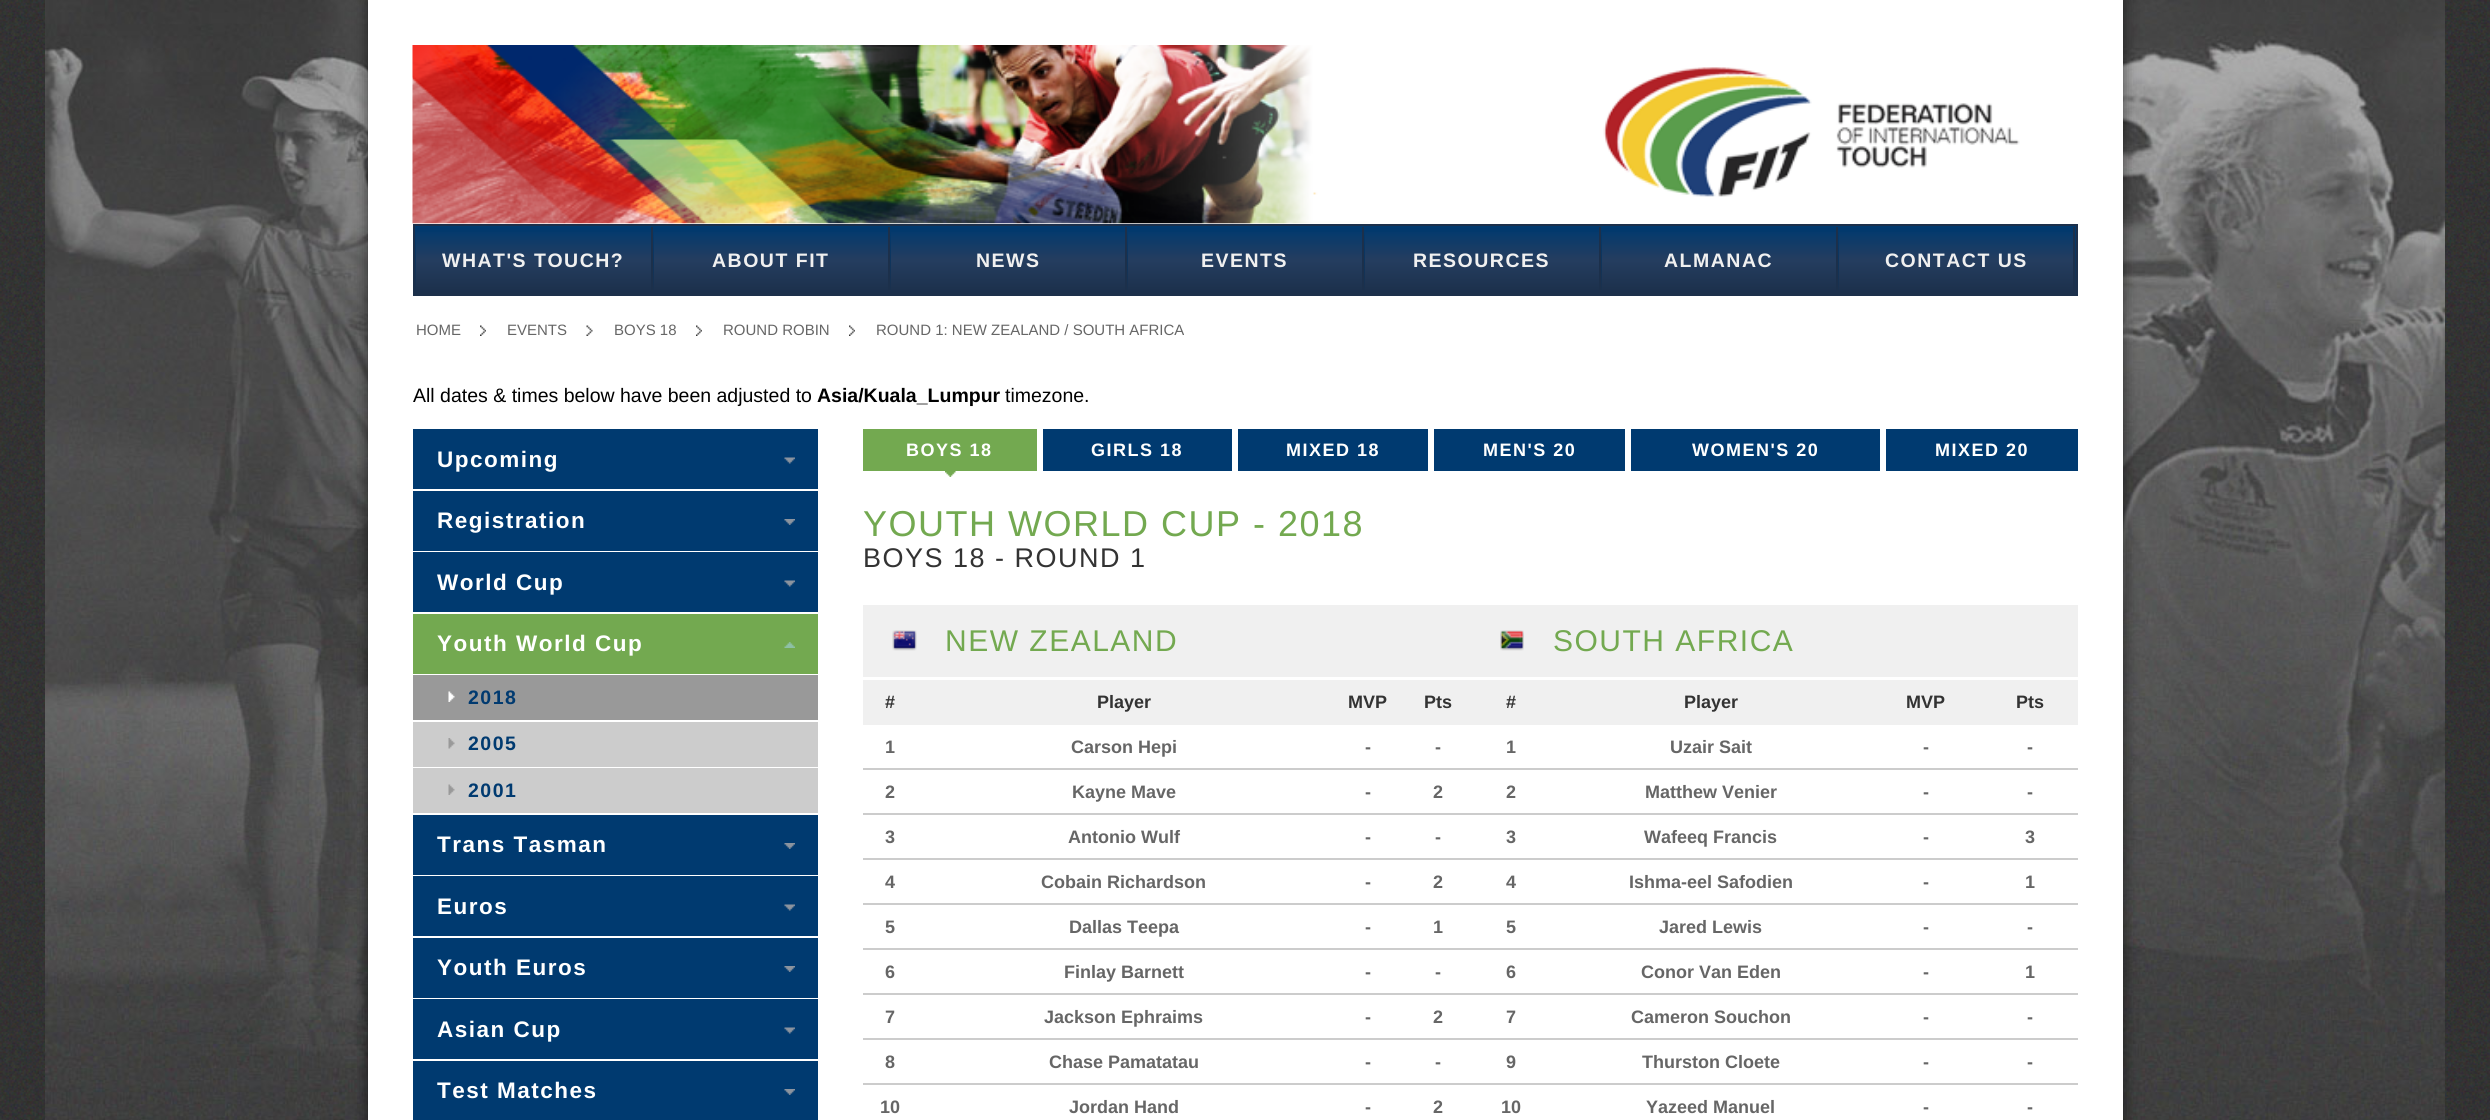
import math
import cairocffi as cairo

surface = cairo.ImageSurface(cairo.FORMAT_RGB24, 2490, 1120)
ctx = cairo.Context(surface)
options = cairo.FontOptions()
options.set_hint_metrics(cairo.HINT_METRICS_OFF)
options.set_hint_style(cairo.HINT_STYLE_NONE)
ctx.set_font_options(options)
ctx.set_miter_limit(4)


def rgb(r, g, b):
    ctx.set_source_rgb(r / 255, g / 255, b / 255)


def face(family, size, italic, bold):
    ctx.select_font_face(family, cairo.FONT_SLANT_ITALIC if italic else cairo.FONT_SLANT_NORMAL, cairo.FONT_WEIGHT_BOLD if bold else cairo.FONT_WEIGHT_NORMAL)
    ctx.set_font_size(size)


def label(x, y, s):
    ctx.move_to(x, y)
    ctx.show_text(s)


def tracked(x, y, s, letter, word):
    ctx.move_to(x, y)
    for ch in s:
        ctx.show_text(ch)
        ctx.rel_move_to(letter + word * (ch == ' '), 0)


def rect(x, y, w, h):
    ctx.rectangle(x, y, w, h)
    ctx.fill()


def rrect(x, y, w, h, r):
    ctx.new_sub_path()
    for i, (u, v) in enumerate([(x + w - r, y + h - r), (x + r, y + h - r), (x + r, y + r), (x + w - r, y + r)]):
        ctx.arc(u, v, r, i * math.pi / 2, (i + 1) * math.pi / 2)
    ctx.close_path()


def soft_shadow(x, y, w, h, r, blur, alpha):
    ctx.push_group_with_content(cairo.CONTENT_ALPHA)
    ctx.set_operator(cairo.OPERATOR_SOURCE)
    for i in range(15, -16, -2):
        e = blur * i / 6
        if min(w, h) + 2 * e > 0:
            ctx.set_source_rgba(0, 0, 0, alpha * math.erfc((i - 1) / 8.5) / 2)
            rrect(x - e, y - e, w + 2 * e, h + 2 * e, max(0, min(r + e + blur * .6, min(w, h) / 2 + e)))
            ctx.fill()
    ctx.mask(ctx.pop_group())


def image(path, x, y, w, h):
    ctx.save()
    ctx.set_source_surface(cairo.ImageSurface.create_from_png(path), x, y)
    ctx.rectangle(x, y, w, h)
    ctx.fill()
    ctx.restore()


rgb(255, 255, 255)
ctx.paint()
image('image0.png', 0, 0, 2490, 1120)
image('image1.png', 45, 0, 2400, 1120)
rgb(0, 0, 0)
soft_shadow(368, 0, 1755, 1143, 0, 7.5, 0.6)
rgb(255, 255, 255)
rect(368, 0, 1755, 1120)
image('image2.png', 412, 45, 1608, 179)
gradient = cairo.LinearGradient(1245, 225, 1245, 294)
gradient.add_color_stop_rgba(0, 0, 0.227, 0.439, 1)
gradient.add_color_stop_rgba(1, 0.11, 0.188, 0.294, 1)
ctx.set_source(gradient)
rect(415, 226, 1661, 68)
ctx.rectangle(414, 225, 1663, 70)
rgb(28, 48, 75)
ctx.stroke()
gradient = cairo.LinearGradient(533, 227, 533, 293)
gradient.add_color_stop_rgba(0, 0, 0.227, 0.439, 1)
gradient.add_color_stop_rgba(0.49, 0.141, 0.239, 0.373, 1)
gradient.add_color_stop_rgba(0.51, 0.141, 0.239, 0.373, 1)
gradient.add_color_stop_rgba(1, 0.11, 0.188, 0.294, 1)
ctx.set_source(gradient)
rect(416, 232, 235, 58)
rgb(28, 48, 75)
rect(651, 227, 2, 66)
face('Liberation Sans', 19.5, 0, 1)
rgb(240, 240, 240)
tracked(442, 267, 'WHAT\'S TOUCH?', 1.5, 0)
gradient = cairo.LinearGradient(771, 227, 771, 293)
gradient.add_color_stop_rgba(0, 0, 0.227, 0.439, 1)
gradient.add_color_stop_rgba(0.49, 0.141, 0.239, 0.373, 1)
gradient.add_color_stop_rgba(0.51, 0.141, 0.239, 0.373, 1)
gradient.add_color_stop_rgba(1, 0.11, 0.188, 0.294, 1)
ctx.set_source(gradient)
rect(654, 232, 234, 58)
rgb(28, 48, 75)
rect(888, 227, 2, 66)
rgb(240, 240, 240)
tracked(712, 267, 'ABOUT FIT', 1.5, 0)
gradient = cairo.LinearGradient(1008, 227, 1008, 293)
gradient.add_color_stop_rgba(0, 0, 0.227, 0.439, 1)
gradient.add_color_stop_rgba(0.49, 0.141, 0.239, 0.373, 1)
gradient.add_color_stop_rgba(0.51, 0.141, 0.239, 0.373, 1)
gradient.add_color_stop_rgba(1, 0.11, 0.188, 0.294, 1)
ctx.set_source(gradient)
rect(891, 232, 234, 58)
rgb(28, 48, 75)
rect(1125, 227, 2, 66)
rgb(240, 240, 240)
tracked(976, 267, 'NEWS', 1.5, 0)
gradient = cairo.LinearGradient(1245, 227, 1245, 293)
gradient.add_color_stop_rgba(0, 0, 0.227, 0.439, 1)
gradient.add_color_stop_rgba(0.49, 0.141, 0.239, 0.373, 1)
gradient.add_color_stop_rgba(0.51, 0.141, 0.239, 0.373, 1)
gradient.add_color_stop_rgba(1, 0.11, 0.188, 0.294, 1)
ctx.set_source(gradient)
rect(1128, 232, 234, 58)
rgb(28, 48, 75)
rect(1362, 227, 2, 66)
rgb(240, 240, 240)
tracked(1201, 267, 'EVENTS', 1.5, 0)
gradient = cairo.LinearGradient(1482, 227, 1482, 293)
gradient.add_color_stop_rgba(0, 0, 0.227, 0.439, 1)
gradient.add_color_stop_rgba(0.49, 0.141, 0.239, 0.373, 1)
gradient.add_color_stop_rgba(0.51, 0.141, 0.239, 0.373, 1)
gradient.add_color_stop_rgba(1, 0.11, 0.188, 0.294, 1)
ctx.set_source(gradient)
rect(1365, 232, 234, 58)
rgb(28, 48, 75)
rect(1599, 227, 2, 66)
rgb(240, 240, 240)
tracked(1413, 267, 'RESOURCES', 1.5, 0)
gradient = cairo.LinearGradient(1719, 227, 1719, 293)
gradient.add_color_stop_rgba(0, 0, 0.227, 0.439, 1)
gradient.add_color_stop_rgba(0.49, 0.141, 0.239, 0.373, 1)
gradient.add_color_stop_rgba(0.51, 0.141, 0.239, 0.373, 1)
gradient.add_color_stop_rgba(1, 0.11, 0.188, 0.294, 1)
ctx.set_source(gradient)
rect(1602, 232, 234, 58)
rgb(28, 48, 75)
rect(1836, 227, 2, 66)
rgb(240, 240, 240)
tracked(1664, 267, 'ALMANAC', 1.5, 0)
gradient = cairo.LinearGradient(1956, 227, 1956, 293)
gradient.add_color_stop_rgba(0, 0, 0.227, 0.439, 1)
gradient.add_color_stop_rgba(0.49, 0.141, 0.239, 0.373, 1)
gradient.add_color_stop_rgba(0.51, 0.141, 0.239, 0.373, 1)
gradient.add_color_stop_rgba(1, 0.11, 0.188, 0.294, 1)
ctx.set_source(gradient)
rect(1839, 232, 234, 58)
rgb(28, 48, 75)
rect(2073, 227, 2, 66)
rgb(240, 240, 240)
tracked(1885, 267, 'CONTACT US', 1.5, 0)
face('Liberation Sans', 15, 0, 0)
rgb(102, 102, 102)
label(416, 335, 'HOME')
image('image3.png', 480, 325, 6, 11)
label(507, 335, 'EVENTS')
image('image4.png', 586, 325, 7, 11)
label(614, 335, 'BOYS 18')
image('image5.png', 696, 325, 6, 11)
label(723, 335, 'ROUND ROBIN')
image('image5.png', 849, 325, 6, 11)
label(876, 335, 'ROUND 1: NEW ZEALAND / SOUTH AFRICA')
face('Liberation Sans', 19.5, 0, 0)
rgb(0, 0, 0)
label(413, 402, 'All dates & times below have been adjusted to')
face('Liberation Sans', 19.5, 0, 1)
label(817, 402, 'Asia/Kuala_Lumpur')
face('Liberation Sans', 19.5, 0, 0)
label(1005, 402, 'timezone.')
rgb(0, 58, 112)
rect(413, 429, 405, 60)
face('Liberation Sans', 22.5, 0, 1)
rgb(255, 255, 255)
tracked(437, 467, 'Upcoming', 1.5, 0)
image('image6.png', 784, 457, 11, 7)
rgb(0, 58, 112)
rect(413, 491, 405, 60)
rgb(255, 255, 255)
tracked(437, 528, 'Registration', 1.5, 0)
image('image7.png', 784, 519, 11, 6)
rgb(0, 58, 112)
rect(413, 552, 405, 60)
rgb(255, 255, 255)
tracked(437, 590, 'World Cup', 1.5, 0)
image('image6.png', 784, 580, 11, 7)
rgb(115, 169, 80)
rect(413, 614, 405, 60)
rgb(255, 255, 255)
tracked(437, 651, 'Youth World Cup', 1.5, 0)
image('image8.png', 784, 642, 11, 6)
rgb(153, 153, 153)
rect(413, 675, 405, 45)
image('image9.png', 448, 691, 7, 11)
face('Liberation Sans', 19.5, 0, 1)
rgb(0, 58, 112)
tracked(468, 704, '2018', 1.5, 0)
rgb(204, 204, 204)
rect(413, 722, 405, 45)
image('image10.png', 448, 738, 7, 11)
rgb(0, 58, 112)
tracked(468, 750, '2005', 1.5, 0)
rgb(204, 204, 204)
rect(413, 768, 405, 45)
image('image11.png', 448, 784, 7, 11)
rgb(0, 58, 112)
tracked(468, 797, '2001', 1.5, 0)
rect(413, 815, 405, 60)
face('Liberation Sans', 22.5, 0, 1)
rgb(255, 255, 255)
tracked(437, 852, 'Trans Tasman', 1.5, 0)
image('image7.png', 784, 843, 11, 6)
rgb(0, 58, 112)
rect(413, 876, 405, 60)
rgb(255, 255, 255)
tracked(437, 914, 'Euros', 1.5, 0)
image('image6.png', 784, 904, 11, 7)
rgb(0, 58, 112)
rect(413, 938, 405, 60)
rgb(255, 255, 255)
tracked(437, 975, 'Youth Euros', 1.5, 0)
image('image7.png', 784, 966, 11, 6)
rgb(0, 58, 112)
rect(413, 999, 405, 60)
rgb(255, 255, 255)
tracked(437, 1037, 'Asian Cup', 1.5, 0)
image('image6.png', 784, 1027, 11, 7)
rgb(0, 58, 112)
rect(413, 1061, 405, 59)
rgb(255, 255, 255)
tracked(437, 1098, 'Test Matches', 1.5, 0)
image('image7.png', 784, 1089, 11, 6)
rgb(115, 169, 80)
rect(863, 429, 174, 42)
face('Liberation Sans', 18, 0, 1)
rgb(255, 255, 255)
tracked(906, 456, 'BOYS 18', 1.5, 0)
image('image12.png', 945, 471, 11, 6)
rgb(0, 58, 112)
rect(1043, 429, 189, 42)
rgb(255, 255, 255)
tracked(1091, 456, 'GIRLS 18', 1.5, 0)
rgb(0, 58, 112)
rect(1238, 429, 190, 42)
rgb(255, 255, 255)
tracked(1286, 456, 'MIXED 18', 1.5, 0)
rgb(0, 58, 112)
rect(1434, 429, 191, 42)
rgb(255, 255, 255)
tracked(1483, 456, 'MEN\'S 20', 1.5, 0)
rgb(0, 58, 112)
rect(1631, 429, 249, 42)
rgb(255, 255, 255)
tracked(1692, 456, 'WOMEN\'S 20', 1.5, 0)
rgb(0, 58, 112)
rect(1886, 429, 192, 42)
rgb(255, 255, 255)
tracked(1935, 456, 'MIXED 20', 1.5, 0)
face('Liberation Sans', 36, 0, 0)
rgb(115, 169, 80)
tracked(863, 536, 'YOUTH WORLD CUP - 2018', 1.5, 0)
face('Liberation Sans', 27, 0, 0)
rgb(51, 51, 51)
tracked(863, 567, 'BOYS 18 - ROUND 1', 1.5, 0)
rgb(240, 240, 240)
rect(863, 605, 1215, 72)
image('image13.png', 892, 630, 25, 21)
face('Liberation Sans', 30, 0, 0)
rgb(115, 169, 80)
tracked(945, 651, 'NEW ZEALAND', 1.5, 0)
rgb(240, 240, 240)
rect(863, 680, 1215, 45)
face('Liberation Sans', 18, 0, 1)
rgb(51, 51, 51)
label(885, 708, '#')
label(1097, 708, 'Player')
label(1348, 708, 'MVP')
label(1424, 708, 'Pts')
rgb(102, 102, 102)
label(885, 753, '1')
label(1071, 753, 'Carson Hepi')
label(1365, 753, '-')
rgb(204, 204, 204)
rect(863, 768, 609, 2)
rgb(102, 102, 102)
label(1435, 753, '-')
label(885, 798, '2')
label(1072, 798, 'Kayne Mave')
label(1365, 798, '-')
rgb(204, 204, 204)
rect(863, 813, 609, 2)
rgb(102, 102, 102)
label(1433, 798, '2')
label(885, 843, '3')
label(1068, 843, 'Antonio Wulf')
label(1365, 843, '-')
rgb(204, 204, 204)
rect(863, 858, 609, 2)
rgb(102, 102, 102)
label(1435, 843, '-')
label(885, 888, '4')
label(1041, 888, 'Cobain Richardson')
label(1365, 888, '-')
rgb(204, 204, 204)
rect(863, 903, 609, 2)
rgb(102, 102, 102)
label(1433, 888, '2')
label(885, 933, '5')
label(1069, 933, 'Dallas Teepa')
label(1365, 933, '-')
rgb(204, 204, 204)
rect(863, 948, 609, 2)
rgb(102, 102, 102)
label(1433, 933, '1')
label(885, 978, '6')
label(1064, 978, 'Finlay Barnett')
label(1365, 978, '-')
rgb(204, 204, 204)
rect(863, 993, 609, 2)
rgb(102, 102, 102)
label(1435, 978, '-')
label(885, 1023, '7')
label(1044, 1023, 'Jackson Ephraims')
label(1365, 1023, '-')
rgb(204, 204, 204)
rect(863, 1038, 609, 2)
rgb(102, 102, 102)
label(1433, 1023, '2')
label(885, 1068, '8')
label(1049, 1068, 'Chase Pamatatau')
label(1365, 1068, '-')
rgb(204, 204, 204)
rect(863, 1083, 609, 2)
rgb(102, 102, 102)
label(1435, 1068, '-')
label(880, 1113, '10')
label(1069, 1113, 'Jordan Hand')
label(1365, 1113, '-')
label(1433, 1113, '2')
image('image14.png', 1500, 630, 24, 21)
face('Liberation Sans', 30, 0, 0)
rgb(115, 169, 80)
tracked(1553, 651, 'SOUTH AFRICA', 1.5, 0)
face('Liberation Sans', 18, 0, 1)
rgb(51, 51, 51)
label(1506, 708, '#')
label(1684, 708, 'Player')
label(1906, 708, 'MVP')
label(2016, 708, 'Pts')
rgb(102, 102, 102)
label(1506, 753, '1')
label(1670, 753, 'Uzair Sait')
label(1923, 753, '-')
rgb(204, 204, 204)
rect(1470, 768, 608, 2)
rgb(102, 102, 102)
label(2027, 753, '-')
label(1506, 798, '2')
label(1645, 798, 'Matthew Venier')
label(1923, 798, '-')
rgb(204, 204, 204)
rect(1470, 813, 608, 2)
rgb(102, 102, 102)
label(2027, 798, '-')
label(1506, 843, '3')
label(1644, 843, 'Wafeeq Francis')
label(1923, 843, '-')
rgb(204, 204, 204)
rect(1470, 858, 608, 2)
rgb(102, 102, 102)
label(2025, 843, '3')
label(1506, 888, '4')
label(1629, 888, 'Ishma-eel Safodien')
label(1923, 888, '-')
rgb(204, 204, 204)
rect(1470, 903, 608, 2)
rgb(102, 102, 102)
label(2025, 888, '1')
label(1506, 933, '5')
label(1659, 933, 'Jared Lewis')
label(1923, 933, '-')
rgb(204, 204, 204)
rect(1470, 948, 608, 2)
rgb(102, 102, 102)
label(2027, 933, '-')
label(1506, 978, '6')
label(1641, 978, 'Conor Van Eden')
label(1923, 978, '-')
rgb(204, 204, 204)
rect(1470, 993, 608, 2)
rgb(102, 102, 102)
label(2025, 978, '1')
label(1506, 1023, '7')
label(1631, 1023, 'Cameron Souchon')
label(1923, 1023, '-')
rgb(204, 204, 204)
rect(1470, 1038, 608, 2)
rgb(102, 102, 102)
label(2027, 1023, '-')
label(1506, 1068, '9')
label(1642, 1068, 'Thurston Cloete')
label(1923, 1068, '-')
rgb(204, 204, 204)
rect(1470, 1083, 608, 2)
rgb(102, 102, 102)
label(2027, 1068, '-')
label(1501, 1113, '10')
label(1646, 1113, 'Yazeed Manuel')
label(1923, 1113, '-')
label(2027, 1113, '-')
surface.write_to_png('render.png')
